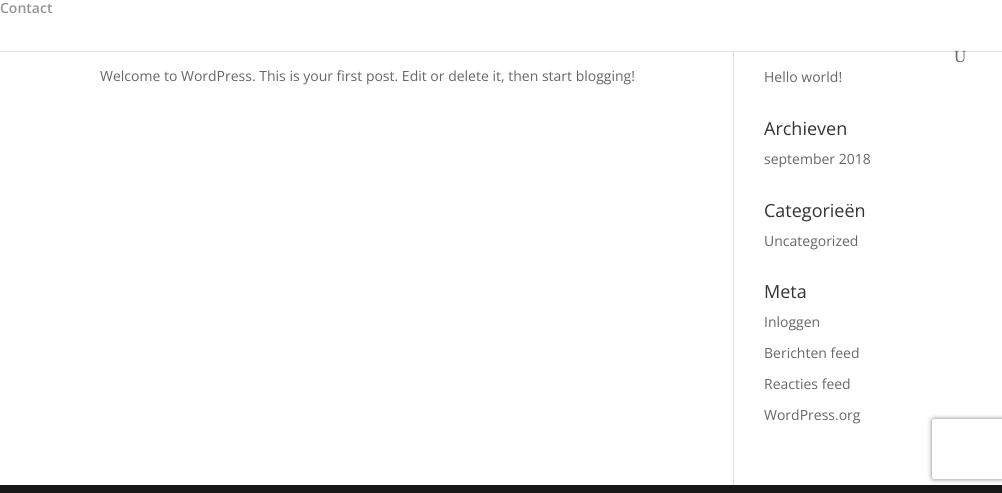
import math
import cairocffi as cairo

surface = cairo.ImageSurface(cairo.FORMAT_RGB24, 1002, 493)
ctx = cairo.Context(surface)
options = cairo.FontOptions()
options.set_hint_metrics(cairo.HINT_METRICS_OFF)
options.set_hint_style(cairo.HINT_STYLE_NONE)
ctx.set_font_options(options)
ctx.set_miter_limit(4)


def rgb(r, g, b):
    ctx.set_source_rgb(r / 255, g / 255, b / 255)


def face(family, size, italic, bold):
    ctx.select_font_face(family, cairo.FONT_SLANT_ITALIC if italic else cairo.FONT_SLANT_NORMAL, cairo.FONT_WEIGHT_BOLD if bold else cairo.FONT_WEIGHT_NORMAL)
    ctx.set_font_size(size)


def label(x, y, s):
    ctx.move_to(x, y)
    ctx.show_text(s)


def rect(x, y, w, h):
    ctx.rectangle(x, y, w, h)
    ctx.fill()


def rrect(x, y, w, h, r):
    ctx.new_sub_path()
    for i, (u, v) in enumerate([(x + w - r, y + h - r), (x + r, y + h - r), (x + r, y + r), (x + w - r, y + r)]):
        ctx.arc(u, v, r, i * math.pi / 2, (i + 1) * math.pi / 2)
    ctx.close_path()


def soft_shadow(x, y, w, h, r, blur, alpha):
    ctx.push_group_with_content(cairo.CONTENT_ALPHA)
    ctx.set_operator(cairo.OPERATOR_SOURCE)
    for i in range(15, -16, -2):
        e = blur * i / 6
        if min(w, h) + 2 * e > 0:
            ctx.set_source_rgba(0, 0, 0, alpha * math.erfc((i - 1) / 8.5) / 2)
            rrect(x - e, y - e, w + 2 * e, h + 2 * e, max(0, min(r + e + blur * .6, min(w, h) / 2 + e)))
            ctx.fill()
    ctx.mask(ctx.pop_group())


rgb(255, 255, 255)
ctx.paint()
rgb(226, 226, 226)
rect(733, 51, 1, 434)
ctx.set_source_rgba(0, 0, 0, 0.1)
rect(0, 51, 1002, 1)
face('Open Sans SemiBold', 14, 0, 0)
rgb(148, 148, 148)
label(0, 13, 'Contact')
face('Liberation Serif', 17, 0, 0)
rgb(102, 102, 102)
label(954, 62, 'U')
face('Open Sans', 14, 0, 0)
label(100, 81, 'Welcome to WordPress. This is your first post. Edit or delete it, then start blogging!')
label(764, 82, 'Hello world!')
face('Open Sans', 18, 0, 0)
rgb(51, 51, 51)
label(764, 135, 'Archieven')
face('Open Sans', 14, 0, 0)
rgb(102, 102, 102)
label(764, 164, 'september 2018')
face('Open Sans', 18, 0, 0)
rgb(51, 51, 51)
label(764, 217, 'Categorieën')
face('Open Sans', 14, 0, 0)
rgb(102, 102, 102)
label(764, 246, 'Uncategorized')
face('Open Sans', 18, 0, 0)
rgb(51, 51, 51)
label(764, 298, 'Meta')
face('Open Sans', 14, 0, 0)
rgb(102, 102, 102)
label(764, 327, 'Inloggen')
label(764, 358, 'Berichten feed')
label(764, 389, 'Reacties feed')
label(764, 420, 'WordPress.org')
rgb(23, 23, 23)
rect(0, 485, 1002, 8)
ctx.save()
ctx.set_fill_rule(cairo.FILL_RULE_EVEN_ODD)
ctx.new_path()
ctx.move_to(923, 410)
ctx.line_to(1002, 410)
ctx.line_to(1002, 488)
ctx.line_to(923, 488)
ctx.close_path()
ctx.move_to(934, 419)
ctx.line_to(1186, 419)
ctx.curve_to(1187, 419, 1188, 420, 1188, 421)
ctx.line_to(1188, 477)
ctx.curve_to(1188, 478, 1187, 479, 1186, 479)
ctx.line_to(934, 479)
ctx.curve_to(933, 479, 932, 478, 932, 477)
ctx.line_to(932, 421)
ctx.curve_to(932, 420, 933, 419, 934, 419)
ctx.close_path()
ctx.clip()
rgb(128, 128, 128)
soft_shadow(932, 419, 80, 60, 2, 2.5, 1)
ctx.restore()
surface.write_to_png('render.png')
